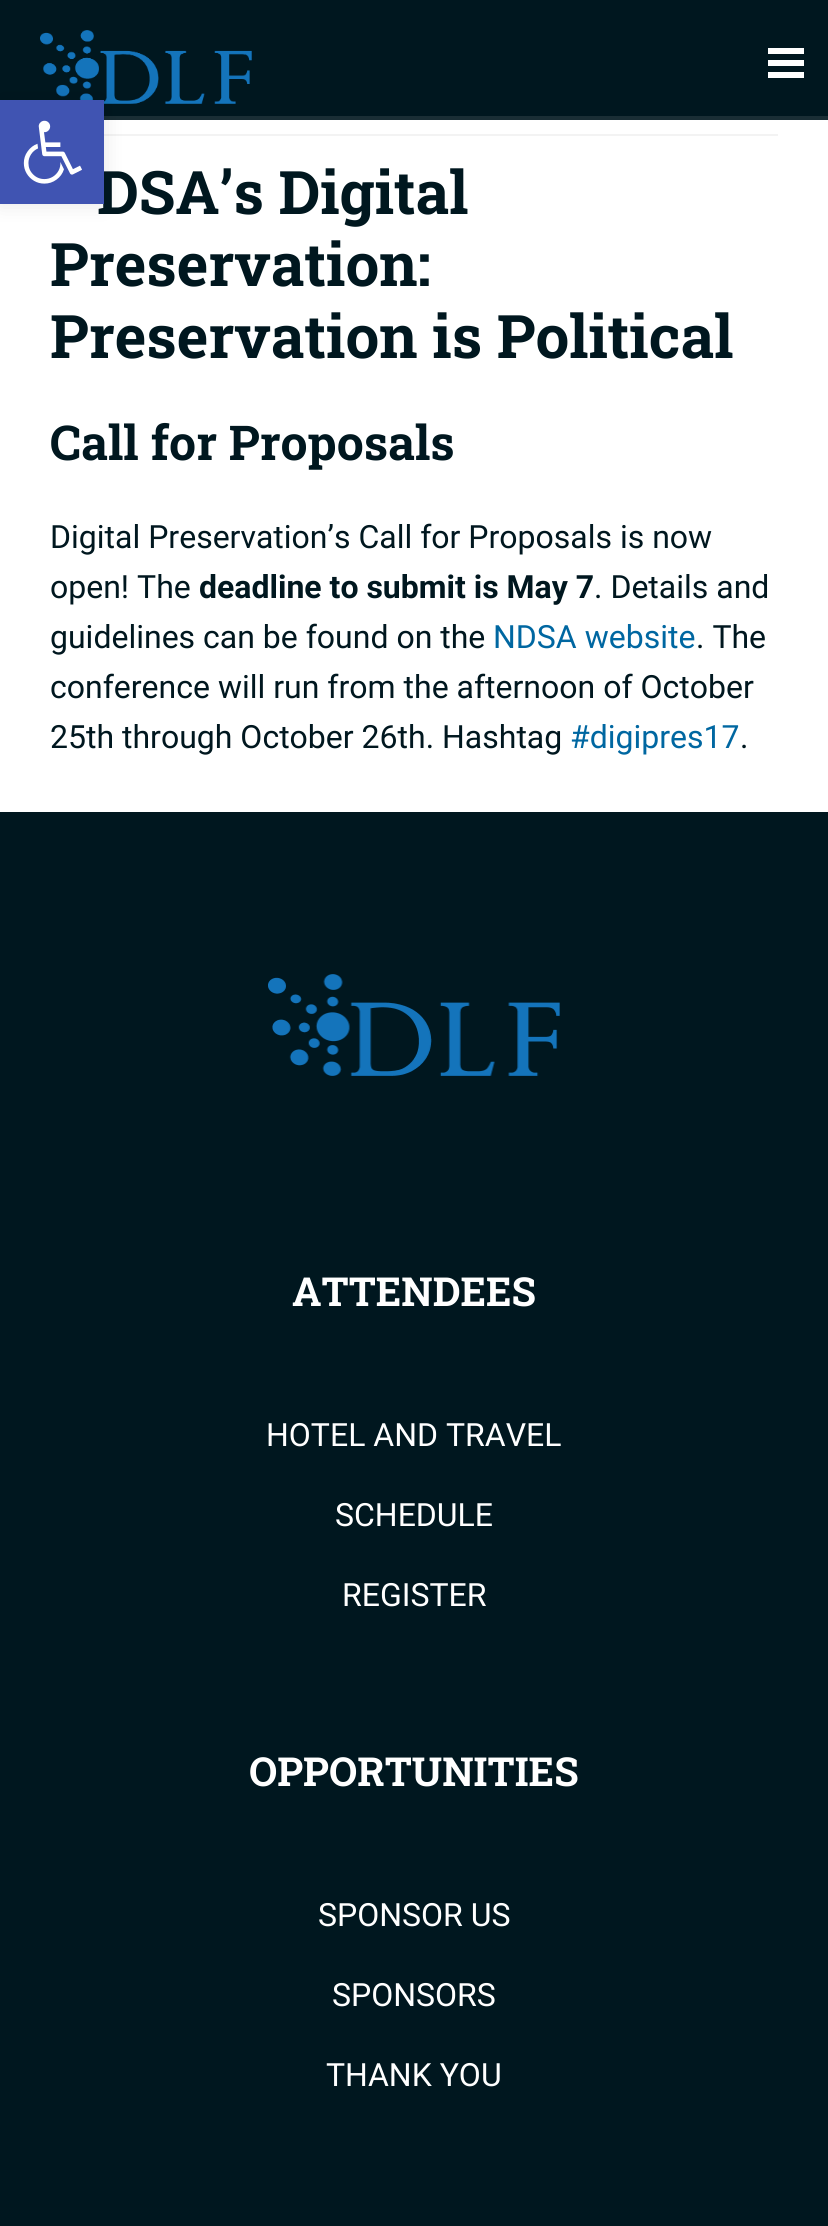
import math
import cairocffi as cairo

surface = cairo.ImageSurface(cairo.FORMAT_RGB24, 828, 2226)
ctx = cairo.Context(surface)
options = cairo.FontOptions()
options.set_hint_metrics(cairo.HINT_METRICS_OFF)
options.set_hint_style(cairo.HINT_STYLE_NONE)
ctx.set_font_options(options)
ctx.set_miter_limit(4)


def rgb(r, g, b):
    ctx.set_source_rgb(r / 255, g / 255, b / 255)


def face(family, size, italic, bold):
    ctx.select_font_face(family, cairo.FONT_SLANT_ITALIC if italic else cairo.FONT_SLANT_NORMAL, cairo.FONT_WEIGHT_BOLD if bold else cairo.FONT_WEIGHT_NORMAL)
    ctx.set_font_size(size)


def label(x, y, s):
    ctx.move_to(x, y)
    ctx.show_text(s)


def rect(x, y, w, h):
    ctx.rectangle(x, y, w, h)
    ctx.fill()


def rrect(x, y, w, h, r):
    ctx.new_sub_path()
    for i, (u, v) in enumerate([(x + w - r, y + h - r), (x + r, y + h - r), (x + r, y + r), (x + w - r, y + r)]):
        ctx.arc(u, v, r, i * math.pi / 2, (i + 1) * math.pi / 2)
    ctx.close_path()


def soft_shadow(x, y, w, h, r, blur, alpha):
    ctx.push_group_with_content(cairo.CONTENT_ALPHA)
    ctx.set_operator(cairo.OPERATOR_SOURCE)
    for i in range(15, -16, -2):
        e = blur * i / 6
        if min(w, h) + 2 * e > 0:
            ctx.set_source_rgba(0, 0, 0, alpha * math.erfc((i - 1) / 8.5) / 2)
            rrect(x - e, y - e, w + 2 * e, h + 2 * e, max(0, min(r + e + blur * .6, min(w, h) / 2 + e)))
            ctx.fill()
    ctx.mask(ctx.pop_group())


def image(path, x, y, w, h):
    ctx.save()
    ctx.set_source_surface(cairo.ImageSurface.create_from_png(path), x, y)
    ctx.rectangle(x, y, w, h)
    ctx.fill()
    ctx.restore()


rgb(255, 255, 255)
ctx.paint()
rgb(0, 23, 31)
rect(0, 0, 828, 116)
rgb(26, 46, 53)
rect(104, 116, 724, 4)
image('image1.png', 40, 30, 212, 74)
rgb(243, 243, 243)
rect(104, 134, 674, 2)
rgb(0, 0, 0)
soft_shadow(0, 100, 104, 104, 0, 10, 0.1)
face('Roboto Slab', 60, 0, 1)
rgb(0, 23, 31)
label(97, 214, 'DSA’s Digital')
rgb(64, 84, 178)
rect(0, 100, 104, 104)
image('image0.png', 23, 120, 59, 64)
rgb(255, 255, 255)
rect(768, 60, 36, 6)
rect(768, 48, 36, 6)
rect(768, 72, 36, 6)
rgb(0, 23, 31)
label(50, 286, 'Preservation:')
label(50, 358, 'Preservation is Political')
face('Roboto Slab', 48, 0, 1)
label(50, 460, 'Call for Proposals')
face('Roboto', 32, 0, 0)
label(50, 548, 'Digital Preservation’s Call for Proposals is now')
label(50, 598, 'open! The')
face('Roboto', 32, 0, 1)
label(199, 598, 'deadline to submit is May 7')
face('Roboto', 32, 0, 0)
label(594, 598, '. Details and')
label(50, 648, 'guidelines can be found on the')
rgb(0, 103, 161)
label(493, 648, 'NDSA website')
rgb(0, 23, 31)
label(696, 648, '. The')
label(50, 698, 'conference will run from the afternoon of October')
label(50, 748, '25th through October 26th. Hashtag')
rgb(0, 103, 161)
label(570, 748, '#digipres17')
rgb(0, 23, 31)
label(740, 748, '.')
rect(0, 812, 828, 1414)
image('image2.png', 268, 974, 292, 102)
face('Roboto Slab', 40, 0, 1)
rgb(255, 255, 255)
label(292, 1306, 'ATTENDEES')
face('Roboto', 32, 0, 0)
label(266, 1446, 'HOTEL AND TRAVEL')
label(335, 1526, 'SCHEDULE')
label(342, 1606, 'REGISTER')
face('Roboto Slab', 40, 0, 1)
label(249, 1786, 'OPPORTUNITIES')
face('Roboto', 32, 0, 0)
label(318, 1926, 'SPONSOR US')
label(332, 2006, 'SPONSORS')
label(326, 2086, 'THANK YOU')
surface.write_to_png('render.png')
